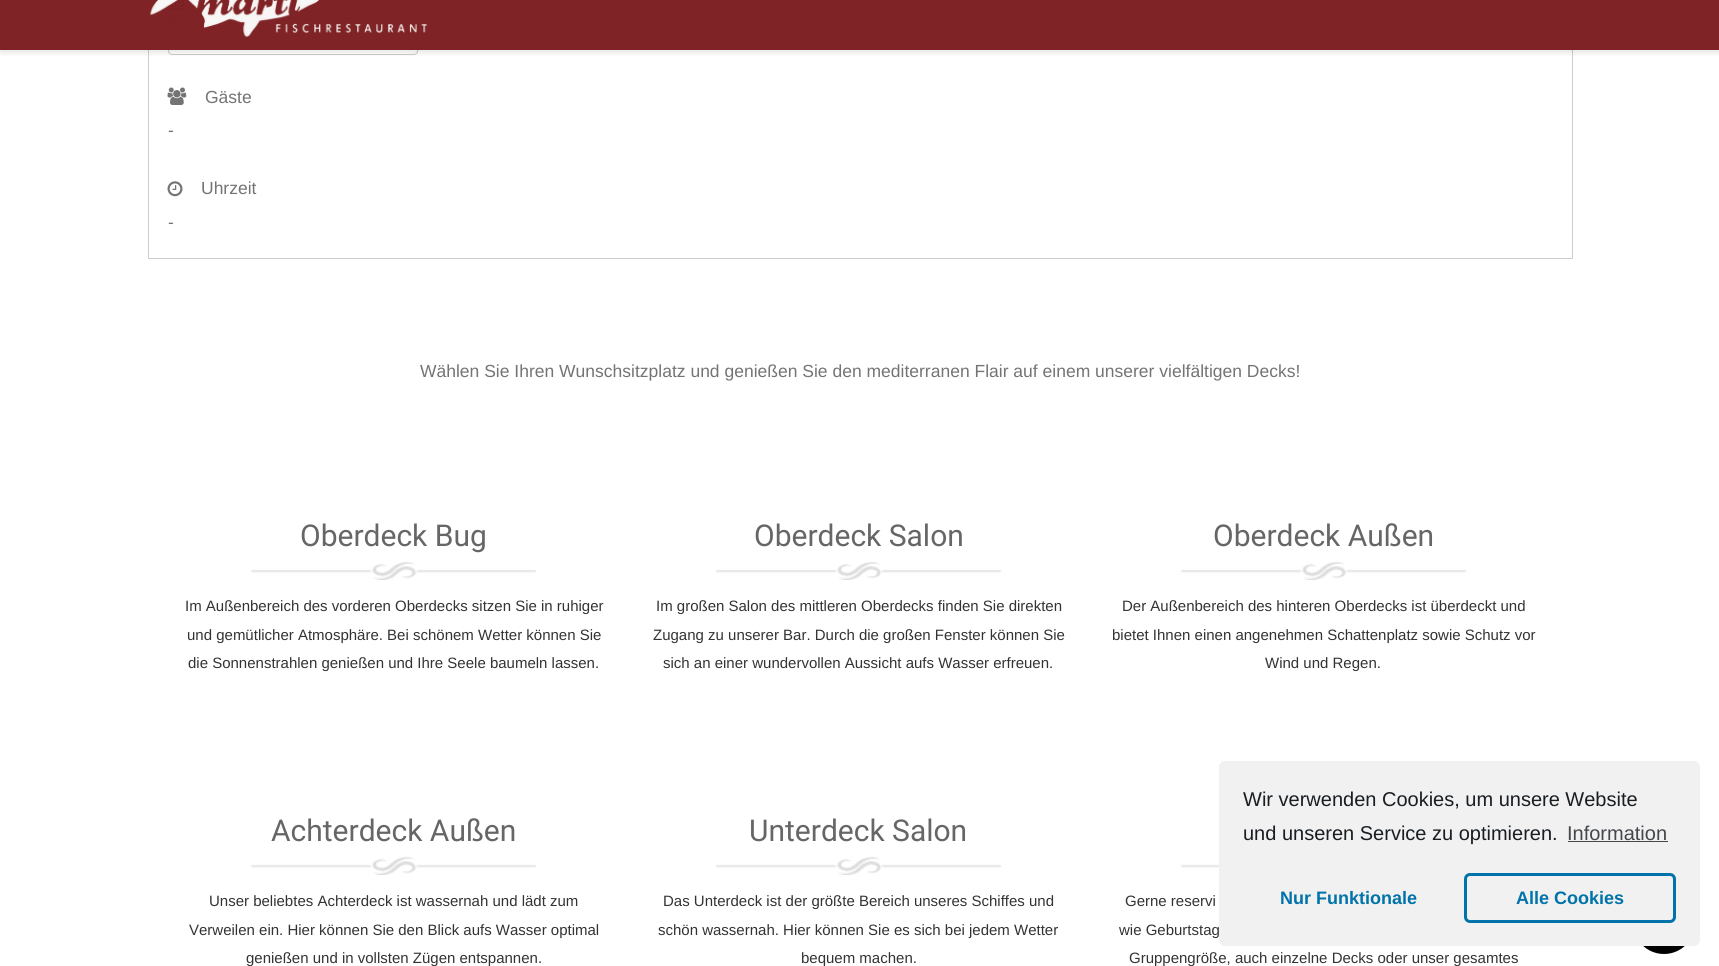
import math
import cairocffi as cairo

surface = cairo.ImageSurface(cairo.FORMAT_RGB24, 1719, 966)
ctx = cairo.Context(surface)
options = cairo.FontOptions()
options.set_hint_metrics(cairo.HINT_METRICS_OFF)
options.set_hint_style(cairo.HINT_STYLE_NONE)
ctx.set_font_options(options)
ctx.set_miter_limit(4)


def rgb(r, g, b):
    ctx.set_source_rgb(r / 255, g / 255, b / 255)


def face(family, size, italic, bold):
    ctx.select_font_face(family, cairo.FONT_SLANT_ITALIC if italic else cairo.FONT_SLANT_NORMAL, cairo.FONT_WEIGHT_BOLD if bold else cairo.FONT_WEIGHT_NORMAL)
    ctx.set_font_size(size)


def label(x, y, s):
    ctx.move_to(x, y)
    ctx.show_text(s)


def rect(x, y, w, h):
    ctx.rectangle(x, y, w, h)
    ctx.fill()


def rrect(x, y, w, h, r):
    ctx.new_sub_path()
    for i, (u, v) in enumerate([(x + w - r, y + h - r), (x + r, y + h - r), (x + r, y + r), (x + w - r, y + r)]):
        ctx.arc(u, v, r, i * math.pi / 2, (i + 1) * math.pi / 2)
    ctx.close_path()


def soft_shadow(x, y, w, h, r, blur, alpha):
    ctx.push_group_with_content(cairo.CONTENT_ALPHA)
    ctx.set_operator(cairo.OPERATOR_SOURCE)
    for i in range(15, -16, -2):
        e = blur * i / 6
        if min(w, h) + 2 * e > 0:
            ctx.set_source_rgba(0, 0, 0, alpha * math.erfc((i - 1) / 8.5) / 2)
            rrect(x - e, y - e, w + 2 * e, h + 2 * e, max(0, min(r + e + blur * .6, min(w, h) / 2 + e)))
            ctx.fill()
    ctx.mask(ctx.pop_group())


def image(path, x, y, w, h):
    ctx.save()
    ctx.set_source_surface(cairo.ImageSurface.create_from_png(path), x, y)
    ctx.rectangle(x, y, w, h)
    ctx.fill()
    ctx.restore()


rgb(255, 255, 255)
ctx.paint()
ctx.rectangle(148.5, -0.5, 1424, 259)
rgb(205, 205, 205)
ctx.set_line_width(1)
ctx.stroke()
image('image1.png', 167, 0, 17, 10)
rrect(168.5, 18.5, 249, 36, 3.5)
rgb(204, 204, 204)
ctx.stroke()
ctx.save()
ctx.rectangle(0, 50, 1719, 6)
ctx.clip()
rgb(0, 0, 0)
soft_shadow(0, -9, 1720, 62, 0, 3, 0.1)
ctx.restore()
ctx.set_source_rgba(0.486, 0.114, 0.125, 0.97)
rect(0, 0, 1719, 50)
image('image0.png', 150, 0, 278, 37)
image('image2.png', 167, 87, 20, 18)
face('Liberation Sans', 17.5, 0, 0)
rgb(116, 116, 116)
label(205, 103, 'Gäste')
label(168, 136, '-')
image('image3.png', 167, 181, 16, 16)
label(201, 194, 'Uhrzeit')
label(168, 228, '-')
label(420, 377, 'Wählen Sie Ihren Wunschsitzplatz und genießen Sie den mediterranen Flair auf einem unserer vielfältigen Decks!')
image('image4.png', 251, 561, 286, 19)
face('Roboto', 30, 0, 0)
rgb(102, 102, 102)
label(300, 546, 'Oberdeck Bug')
face('Liberation Sans', 15, 0, 0)
rgb(51, 51, 51)
label(185, 611, 'Im Außenbereich des vorderen Oberdecks sitzen Sie in ruhiger')
label(187, 640, 'und gemütlicher Atmosphäre. Bei schönem Wetter können Sie')
label(188, 668, 'die Sonnenstrahlen genießen und Ihre Seele baumeln lassen.')
image('image5.png', 716, 561, 286, 19)
face('Roboto', 30, 0, 0)
rgb(102, 102, 102)
label(754, 546, 'Oberdeck Salon')
face('Liberation Sans', 15, 0, 0)
rgb(51, 51, 51)
label(656, 611, 'Im großen Salon des mittleren Oberdecks finden Sie direkten')
label(653, 640, 'Zugang zu unserer Bar. Durch die großen Fenster können Sie')
label(663, 668, 'sich an einer wundervollen Aussicht aufs Wasser erfreuen.')
image('image5.png', 1181, 561, 286, 19)
face('Roboto', 30, 0, 0)
rgb(102, 102, 102)
label(1213, 546, 'Oberdeck Außen')
face('Liberation Sans', 15, 0, 0)
rgb(51, 51, 51)
label(1122, 611, 'Der Außenbereich des hinteren Oberdecks ist überdeckt und')
label(1112, 640, 'bietet Ihnen einen angenehmen Schattenplatz sowie Schutz vor')
label(1265, 668, 'Wind und Regen.')
image('image4.png', 251, 856, 286, 19)
face('Roboto', 30, 0, 0)
rgb(102, 102, 102)
label(271, 841, 'Achterdeck Außen')
face('Liberation Sans', 15, 0, 0)
rgb(51, 51, 51)
label(209, 906, 'Unser beliebtes Achterdeck ist wassernah und lädt zum')
label(189, 935, 'Verweilen ein. Hier können Sie den Blick aufs Wasser optimal')
label(246, 963, 'genießen und in vollsten Zügen entspannen.')
image('image5.png', 716, 856, 286, 19)
face('Roboto', 30, 0, 0)
rgb(102, 102, 102)
label(749, 841, 'Unterdeck Salon')
face('Liberation Sans', 15, 0, 0)
rgb(51, 51, 51)
label(663, 906, 'Das Unterdeck ist der größte Bereich unseres Schiffes und')
label(658, 935, 'schön wassernah. Hier können Sie es sich bei jedem Wetter')
label(801, 963, 'bequem machen.')
image('image6.png', 1181, 864, 38, 4)
label(1125, 906, 'Gerne reservi')
label(1119, 935, 'wie Geburtstag')
label(1129, 963, 'Gruppengröße, auch einzelne Decks oder unser gesamtes')
rgb(0, 0, 0)
rrect(1633, 891, 62, 63, 31)
ctx.fill()
rgb(241, 241, 241)
rrect(1219, 761, 481, 185, 6)
ctx.fill()
face('Liberation Sans', 20, 0, 0)
rgb(25, 30, 35)
label(1243, 806, 'Wir verwenden Cookies, um unsere Website')
label(1243, 840, 'und unseren Service zu optimieren.')
rgb(68, 72, 76)
label(1567, 840, 'Information')
rect(1568, 841, 100, 1)
face('Liberation Sans', 18, 0, 1)
rgb(0, 115, 170)
label(1280, 904, 'Nur Funktionale')
rrect(1465.5, 874.5, 209, 47, 4.5)
ctx.set_line_width(3)
ctx.stroke()
label(1516, 904, 'Alle Cookies')
surface.write_to_png('render.png')
